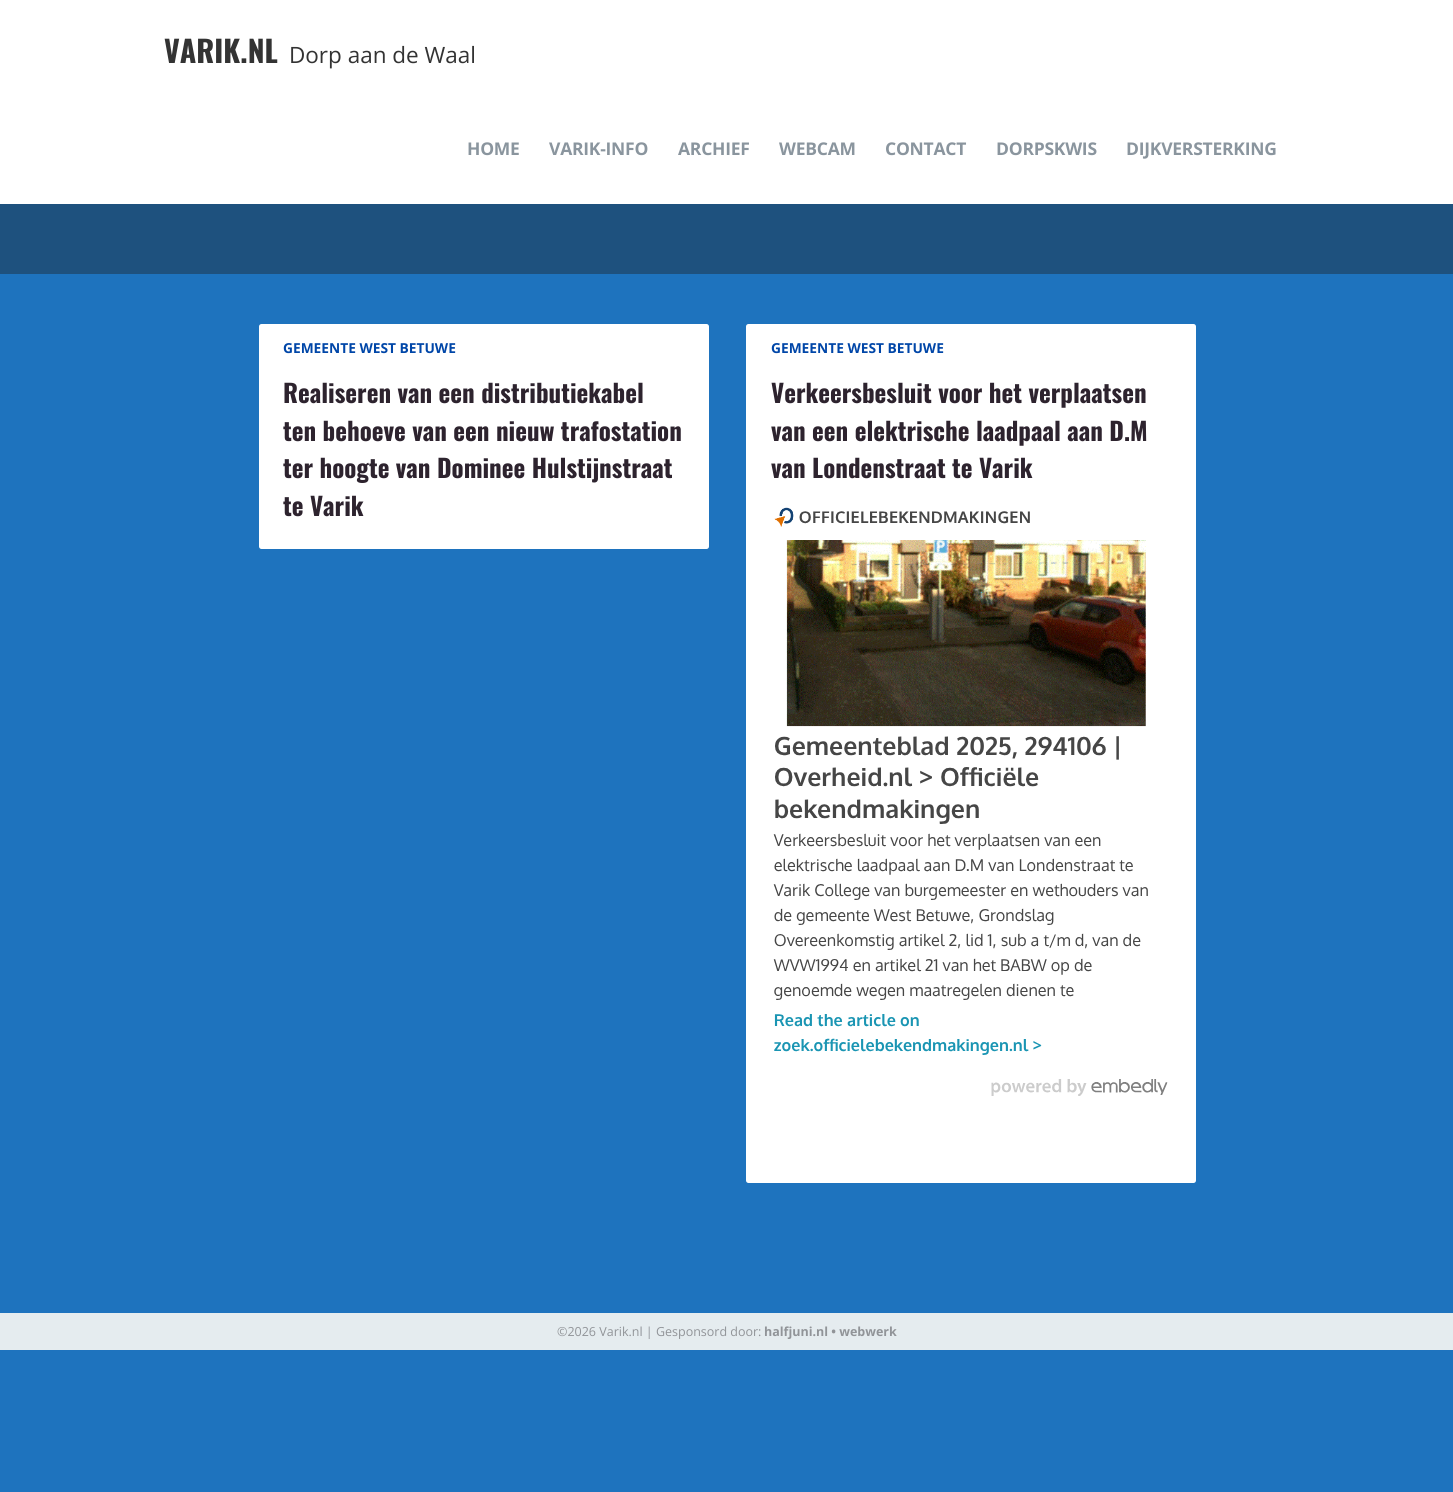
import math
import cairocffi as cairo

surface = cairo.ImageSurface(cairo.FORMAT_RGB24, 1453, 1492)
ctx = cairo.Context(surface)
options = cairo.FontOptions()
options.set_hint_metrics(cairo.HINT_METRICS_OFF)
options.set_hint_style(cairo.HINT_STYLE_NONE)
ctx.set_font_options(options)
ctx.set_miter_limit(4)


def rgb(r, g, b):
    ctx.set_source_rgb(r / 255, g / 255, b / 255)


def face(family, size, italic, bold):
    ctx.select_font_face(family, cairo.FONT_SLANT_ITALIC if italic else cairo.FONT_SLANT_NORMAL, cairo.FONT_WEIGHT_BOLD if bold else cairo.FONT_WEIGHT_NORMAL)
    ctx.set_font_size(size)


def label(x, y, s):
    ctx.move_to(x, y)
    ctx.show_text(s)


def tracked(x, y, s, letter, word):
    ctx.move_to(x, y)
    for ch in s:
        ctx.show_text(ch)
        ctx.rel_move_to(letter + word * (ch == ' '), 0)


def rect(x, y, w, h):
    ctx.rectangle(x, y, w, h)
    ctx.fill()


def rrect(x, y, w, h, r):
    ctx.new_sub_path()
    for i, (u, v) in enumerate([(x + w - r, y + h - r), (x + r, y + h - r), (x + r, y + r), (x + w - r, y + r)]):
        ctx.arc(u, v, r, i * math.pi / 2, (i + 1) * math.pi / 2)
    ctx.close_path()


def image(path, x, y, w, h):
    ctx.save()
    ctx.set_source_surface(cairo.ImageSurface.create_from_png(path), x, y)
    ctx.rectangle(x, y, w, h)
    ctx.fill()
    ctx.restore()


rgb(30, 115, 190)
ctx.paint()
rgb(255, 255, 255)
rect(0, 0, 1453, 204)
face('Oswald', 30, 0, 1)
rgb(51, 51, 51)
label(164, 63, 'VARIK.NL')
face('Open Sans', 22.5, 0, 0)
label(289, 63, 'Dorp aan de Waal')
face('Open Sans', 17.5, 0, 1)
rgb(138, 149, 158)
tracked(467, 155, 'HOME', -0.25, 0)
tracked(549, 155, 'VARIK-INFO', -0.25, 0)
tracked(678, 155, 'ARCHIEF', -0.25, 0)
tracked(779, 155, 'WEBCAM', -0.25, 0)
tracked(885, 155, 'CONTACT', -0.25, 0)
tracked(996, 155, 'DORPSKWIS', -0.25, 0)
tracked(1126, 155, 'DIJKVERSTERKING', -0.25, 0)
rgb(30, 81, 126)
rect(0, 204, 1453, 70)
rgb(255, 255, 255)
rrect(259, 324, 450, 225, 2.5)
ctx.fill()
face('Open Sans', 13.75, 0, 1)
rgb(0, 70, 168)
label(283, 353, 'GEMEENTE WEST BETUWE')
face('Oswald', 25, 0, 1)
rgb(45, 35, 46)
label(283, 403, 'Realiseren van een distributiekabel')
label(283, 441, 'ten behoeve van een nieuw trafostation')
label(283, 478, 'ter hoogte van Dominee Hulstijnstraat')
label(283, 516, 'te Varik')
rgb(255, 255, 255)
rrect(746, 324, 450, 859, 2.5)
ctx.fill()
face('Open Sans', 13.75, 0, 1)
rgb(0, 70, 168)
label(771, 353, 'GEMEENTE WEST BETUWE')
face('Oswald', 25, 0, 1)
rgb(45, 35, 46)
label(771, 403, 'Verkeersbesluit voor het verplaatsen')
label(771, 441, 'van een elektrische laadpaal aan D.M')
label(771, 478, 'van Londenstraat te Varik')
image('image0.png', 773, 507, 395, 589)
rgb(229, 236, 239)
rect(0, 1313, 1453, 37)
face('Open Sans', 12.5, 0, 0)
rgb(145, 148, 152)
label(557, 1336, '©2026 Varik.nl | Gesponsord door:')
face('Open Sans', 12.5, 0, 1)
label(764, 1336, 'halfjuni.nl • webwerk')
surface.write_to_png('render.png')
